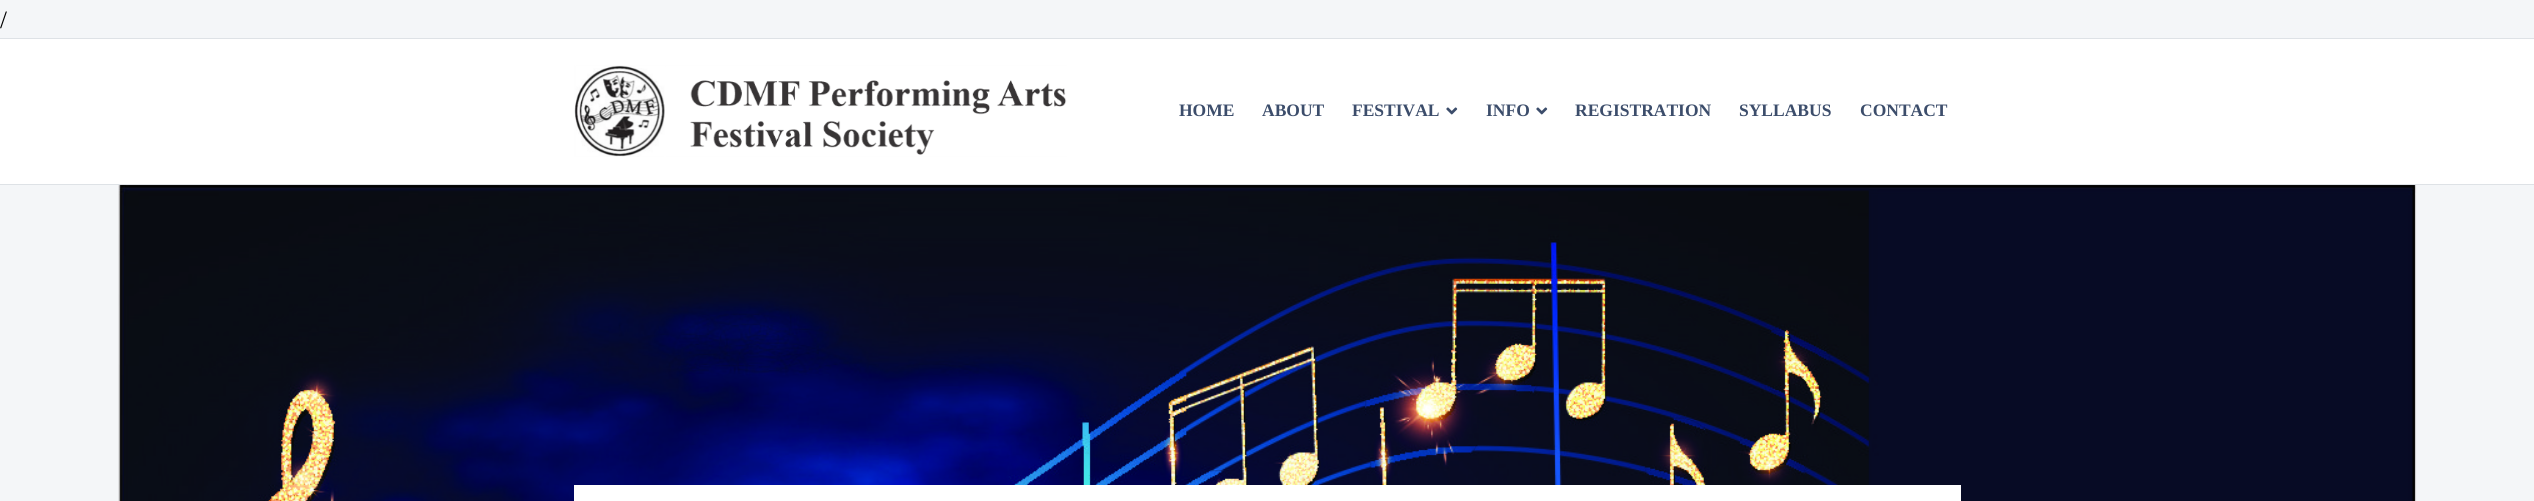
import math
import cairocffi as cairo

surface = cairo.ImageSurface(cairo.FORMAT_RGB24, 2534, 501)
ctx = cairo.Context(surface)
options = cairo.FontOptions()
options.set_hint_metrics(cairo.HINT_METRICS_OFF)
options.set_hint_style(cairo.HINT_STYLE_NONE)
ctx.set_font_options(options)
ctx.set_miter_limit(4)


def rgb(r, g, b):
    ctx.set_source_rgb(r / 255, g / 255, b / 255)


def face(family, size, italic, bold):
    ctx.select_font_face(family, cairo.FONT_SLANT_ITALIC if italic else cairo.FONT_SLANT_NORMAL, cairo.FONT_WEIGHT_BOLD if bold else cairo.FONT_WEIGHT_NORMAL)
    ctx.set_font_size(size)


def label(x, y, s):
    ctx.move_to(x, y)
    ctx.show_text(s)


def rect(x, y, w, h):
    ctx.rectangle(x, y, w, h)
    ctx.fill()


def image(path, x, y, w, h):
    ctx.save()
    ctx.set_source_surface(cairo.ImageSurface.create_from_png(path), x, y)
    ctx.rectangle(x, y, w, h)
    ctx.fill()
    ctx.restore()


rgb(244, 246, 248)
ctx.paint()
face('Liberation Serif', 25, 0, 0)
rgb(0, 0, 0)
label(0, 28, '/')
rgb(255, 255, 255)
rect(0, 39, 2534, 145)
rgb(222, 226, 230)
rect(0, 38, 2534, 1)
rect(0, 184, 2534, 1)
image('image0.png', 574, 65, 493, 92)
face('Liberation Serif', 17.5, 0, 1)
rgb(60, 77, 107)
label(1179, 116, 'HOME')
label(1262, 116, 'ABOUT')
label(1352, 116, 'FESTIVAL')
image('image1.png', 1446, 107, 12, 8)
label(1486, 116, 'INFO')
image('image1.png', 1536, 107, 12, 8)
label(1575, 116, 'REGISTRATION')
label(1739, 116, 'SYLLABUS')
label(1860, 116, 'CONTACT')
image('image2.png', 118, 185, 2299, 316)
rgb(255, 255, 255)
rect(574, 485, 1387, 16)
surface.write_to_png('render.png')
